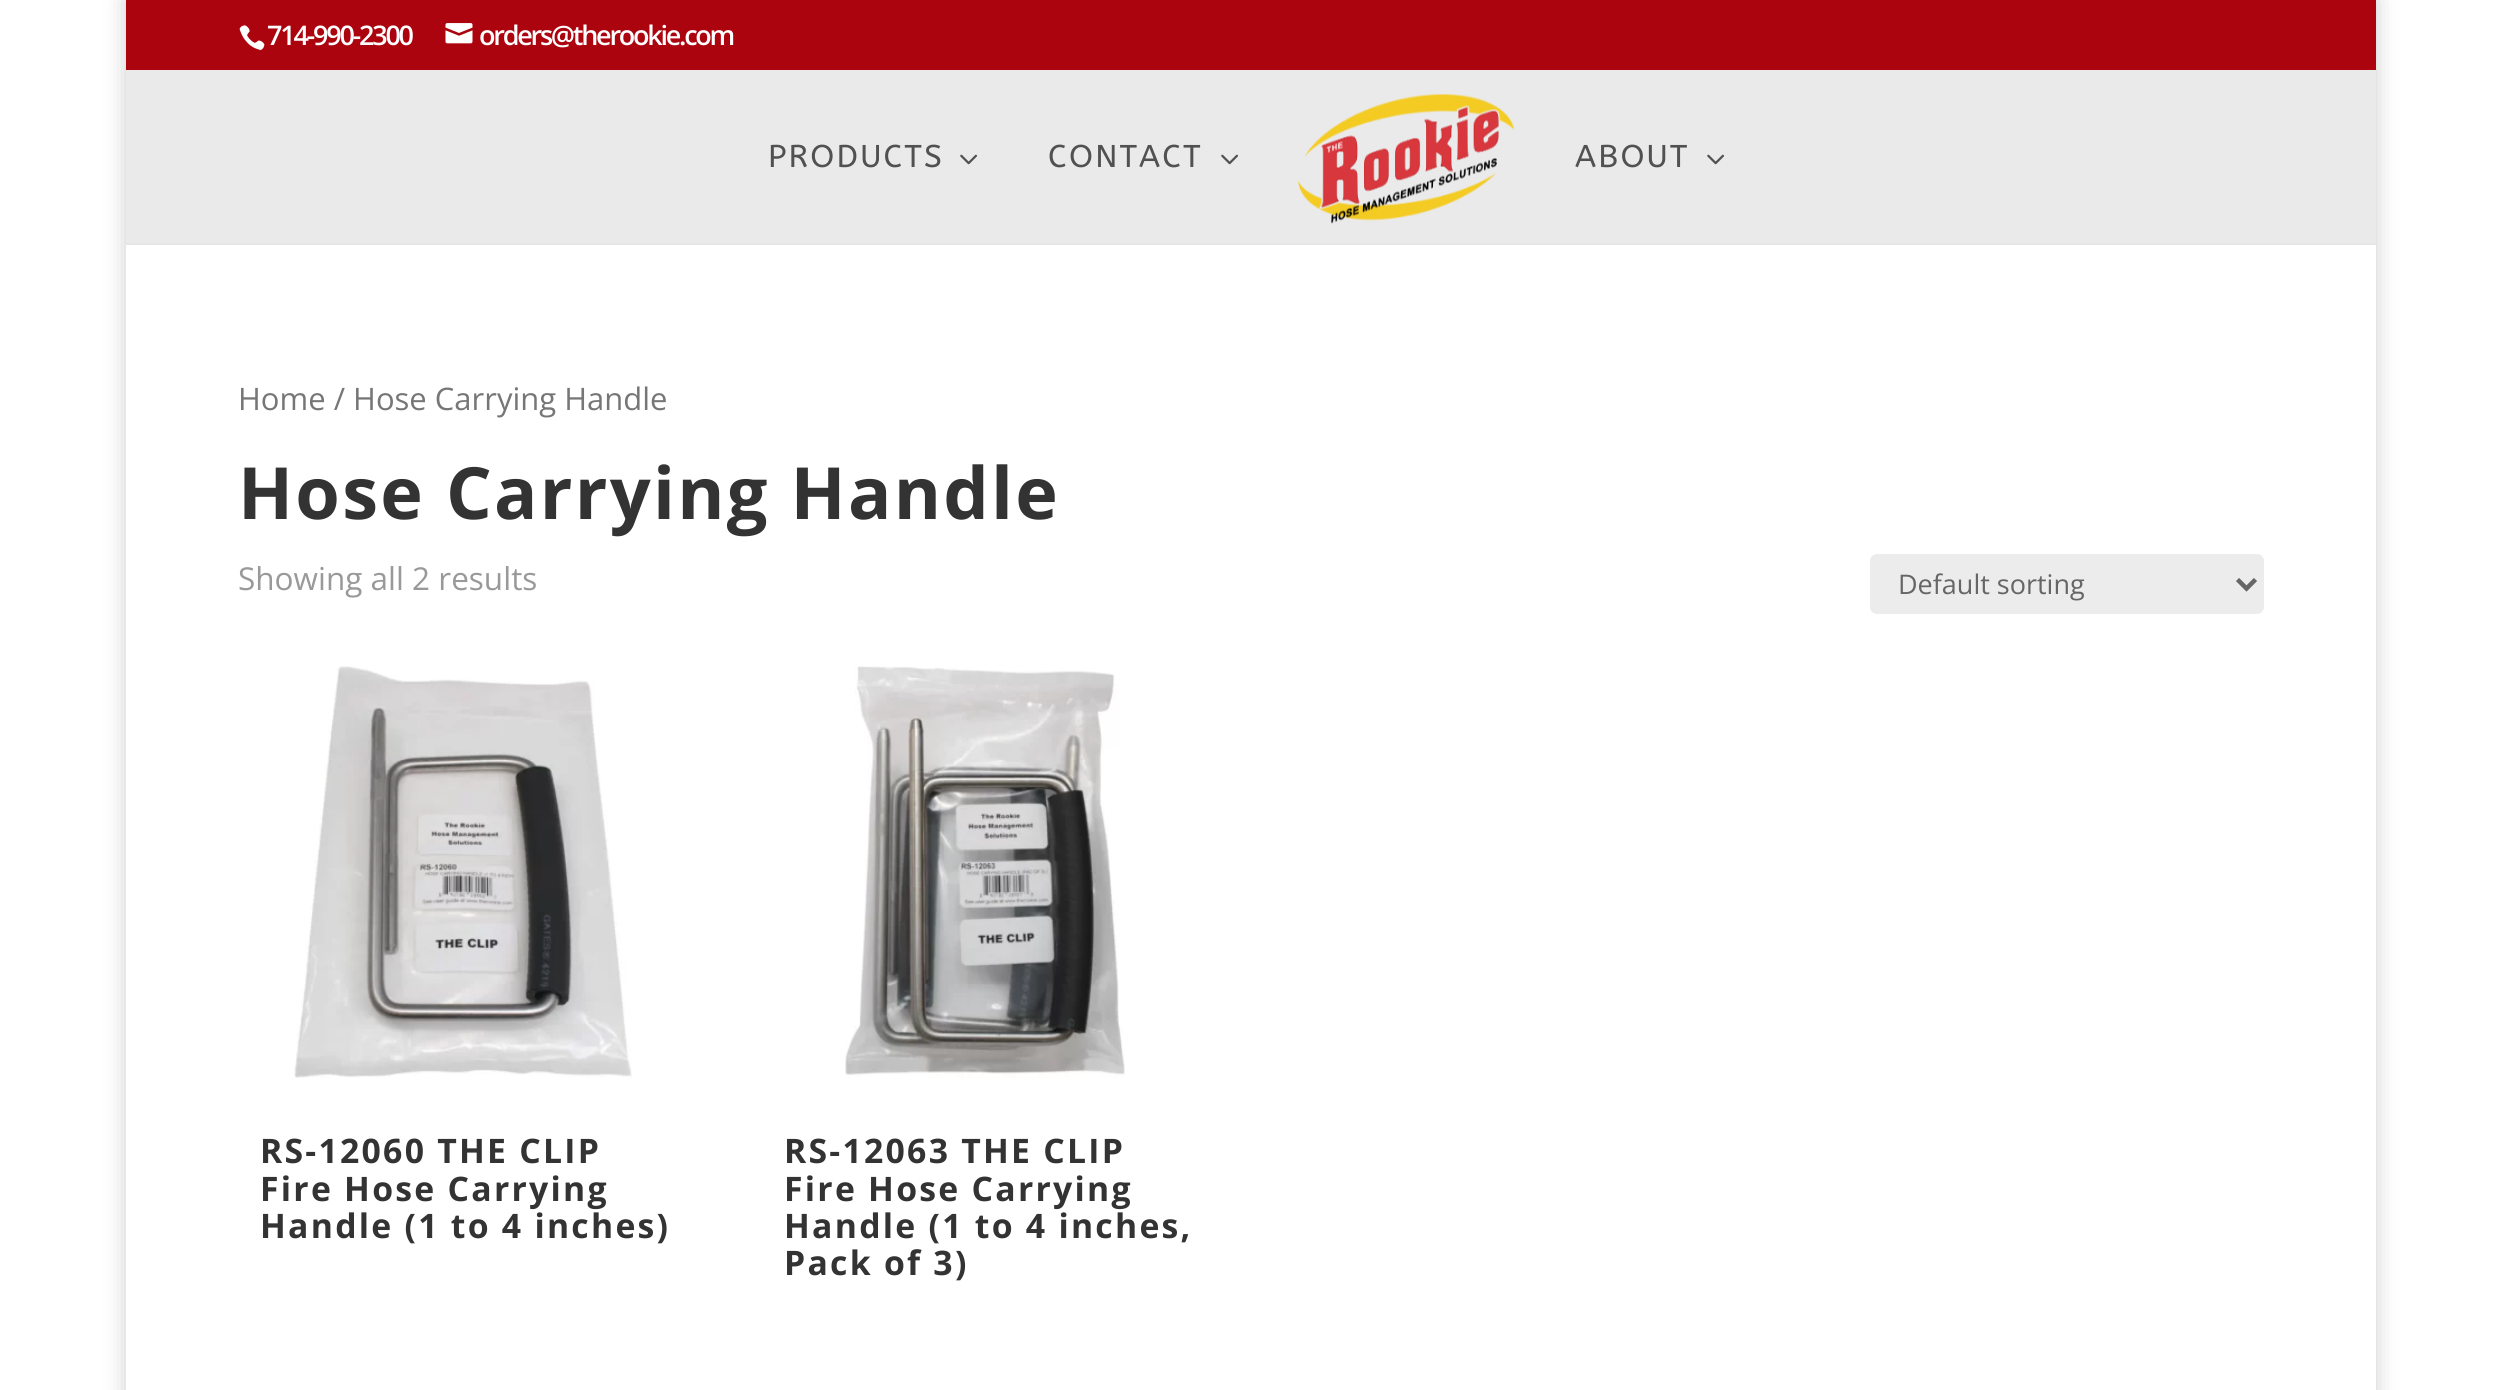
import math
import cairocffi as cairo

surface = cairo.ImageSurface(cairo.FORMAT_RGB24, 2500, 1390)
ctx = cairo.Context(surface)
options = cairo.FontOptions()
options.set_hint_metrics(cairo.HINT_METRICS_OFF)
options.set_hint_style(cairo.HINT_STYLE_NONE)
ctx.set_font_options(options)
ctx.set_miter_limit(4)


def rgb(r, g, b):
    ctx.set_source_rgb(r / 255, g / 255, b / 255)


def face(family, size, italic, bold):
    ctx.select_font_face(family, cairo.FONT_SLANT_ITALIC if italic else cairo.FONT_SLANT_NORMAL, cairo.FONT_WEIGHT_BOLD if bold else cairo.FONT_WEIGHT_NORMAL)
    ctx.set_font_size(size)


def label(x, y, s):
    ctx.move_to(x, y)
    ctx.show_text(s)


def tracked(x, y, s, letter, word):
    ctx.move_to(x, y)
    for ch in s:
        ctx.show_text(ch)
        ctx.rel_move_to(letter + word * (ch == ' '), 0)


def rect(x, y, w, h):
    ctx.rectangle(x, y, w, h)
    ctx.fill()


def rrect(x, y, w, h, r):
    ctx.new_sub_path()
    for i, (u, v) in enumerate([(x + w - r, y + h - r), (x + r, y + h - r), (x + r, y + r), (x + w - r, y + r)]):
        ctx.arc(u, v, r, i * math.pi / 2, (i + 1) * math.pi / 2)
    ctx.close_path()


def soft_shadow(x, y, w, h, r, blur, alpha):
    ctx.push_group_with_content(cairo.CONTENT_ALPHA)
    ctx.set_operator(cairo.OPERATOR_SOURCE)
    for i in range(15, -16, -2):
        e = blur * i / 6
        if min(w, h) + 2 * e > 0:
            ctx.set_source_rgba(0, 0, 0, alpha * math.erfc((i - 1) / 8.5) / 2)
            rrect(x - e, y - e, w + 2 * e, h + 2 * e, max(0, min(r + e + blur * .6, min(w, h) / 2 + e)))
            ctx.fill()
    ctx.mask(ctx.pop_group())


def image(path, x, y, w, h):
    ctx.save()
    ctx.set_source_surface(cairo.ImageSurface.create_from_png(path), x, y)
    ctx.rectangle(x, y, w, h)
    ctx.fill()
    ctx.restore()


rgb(255, 255, 255)
ctx.paint()
ctx.save()
ctx.set_fill_rule(cairo.FILL_RULE_EVEN_ODD)
ctx.new_path()
ctx.move_to(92, 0)
ctx.line_to(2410, 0)
ctx.line_to(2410, 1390)
ctx.line_to(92, 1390)
ctx.close_path()
ctx.move_to(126, 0)
ctx.line_to(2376, 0)
ctx.line_to(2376, 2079)
ctx.line_to(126, 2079)
ctx.close_path()
ctx.clip()
rgb(0, 0, 0)
soft_shadow(126, 0, 2250, 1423, 0, 11, 0.2)
ctx.restore()
rgb(172, 4, 14)
rect(126, 0, 2250, 70)
image('image0.png', 239, 25, 26, 26)
face('Open Sans SemiBold', 27, 0, 0)
rgb(255, 255, 255)
tracked(267, 45, '714-990-2300', -2.25, 0)
image('image1.png', 445, 23, 28, 21)
tracked(479, 45, 'orders@therookie.com', -2.25, 0)
rgb(230, 230, 230)
rect(126, 243, 2250, 2)
rgb(234, 234, 234)
rect(126, 70, 2250, 173)
face('ABeeZee', 31.5, 0, 0)
rgb(81, 81, 81)
tracked(768, 167, 'PRODUCTS', 2.25, 0)
image('image2.png', 960, 154, 17, 11)
tracked(1048, 167, 'CONTACT', 2.25, 0)
image('image2.png', 1221, 154, 17, 11)
image('image3.png', 1298, 94, 217, 130)
tracked(1575, 167, 'ABOUT', 2.25, 0)
image('image2.png', 1707, 154, 17, 11)
face('Open Sans', 31, 0, 0)
rgb(118, 118, 118)
label(238, 410, 'Home / Hose Carrying Handle')
face('Open Sans', 72, 0, 1)
rgb(51, 51, 51)
tracked(238, 519, 'Hose Carrying Handle', 2.25, 0)
face('Open Sans', 31.5, 0, 0)
rgb(153, 153, 153)
label(238, 590, 'Showing all 2 results')
rgb(236, 236, 236)
rrect(1870, 554, 394, 60, 7)
ctx.fill()
ctx.new_path()
ctx.move_to(2237.5, 579.5)
ctx.line_to(2246.5, 588.5)
ctx.line_to(2255.5, 579.5)
rgb(102, 102, 102)
ctx.set_line_width(4.5)
ctx.stroke()
face('Open Sans', 27, 0, 0)
label(1898, 594, 'Default sorting')
image('image4.png', 294, 666, 338, 412)
face('Open Sans', 33.75, 0, 1)
rgb(51, 51, 51)
tracked(260, 1163, 'RS-12060 THE CLIP', 2.25, 0)
tracked(260, 1201, 'Fire Hose Carrying', 2.25, 0)
tracked(260, 1238, 'Handle (1 to 4 inches)', 2.25, 0)
image('image5.png', 845, 666, 280, 412)
tracked(784, 1163, 'RS-12063 THE CLIP', 2.25, 0)
tracked(784, 1201, 'Fire Hose Carrying', 2.25, 0)
tracked(784, 1238, 'Handle (1 to 4 inches,', 2.25, 0)
tracked(784, 1275, 'Pack of 3)', 2.25, 0)
surface.write_to_png('render.png')
